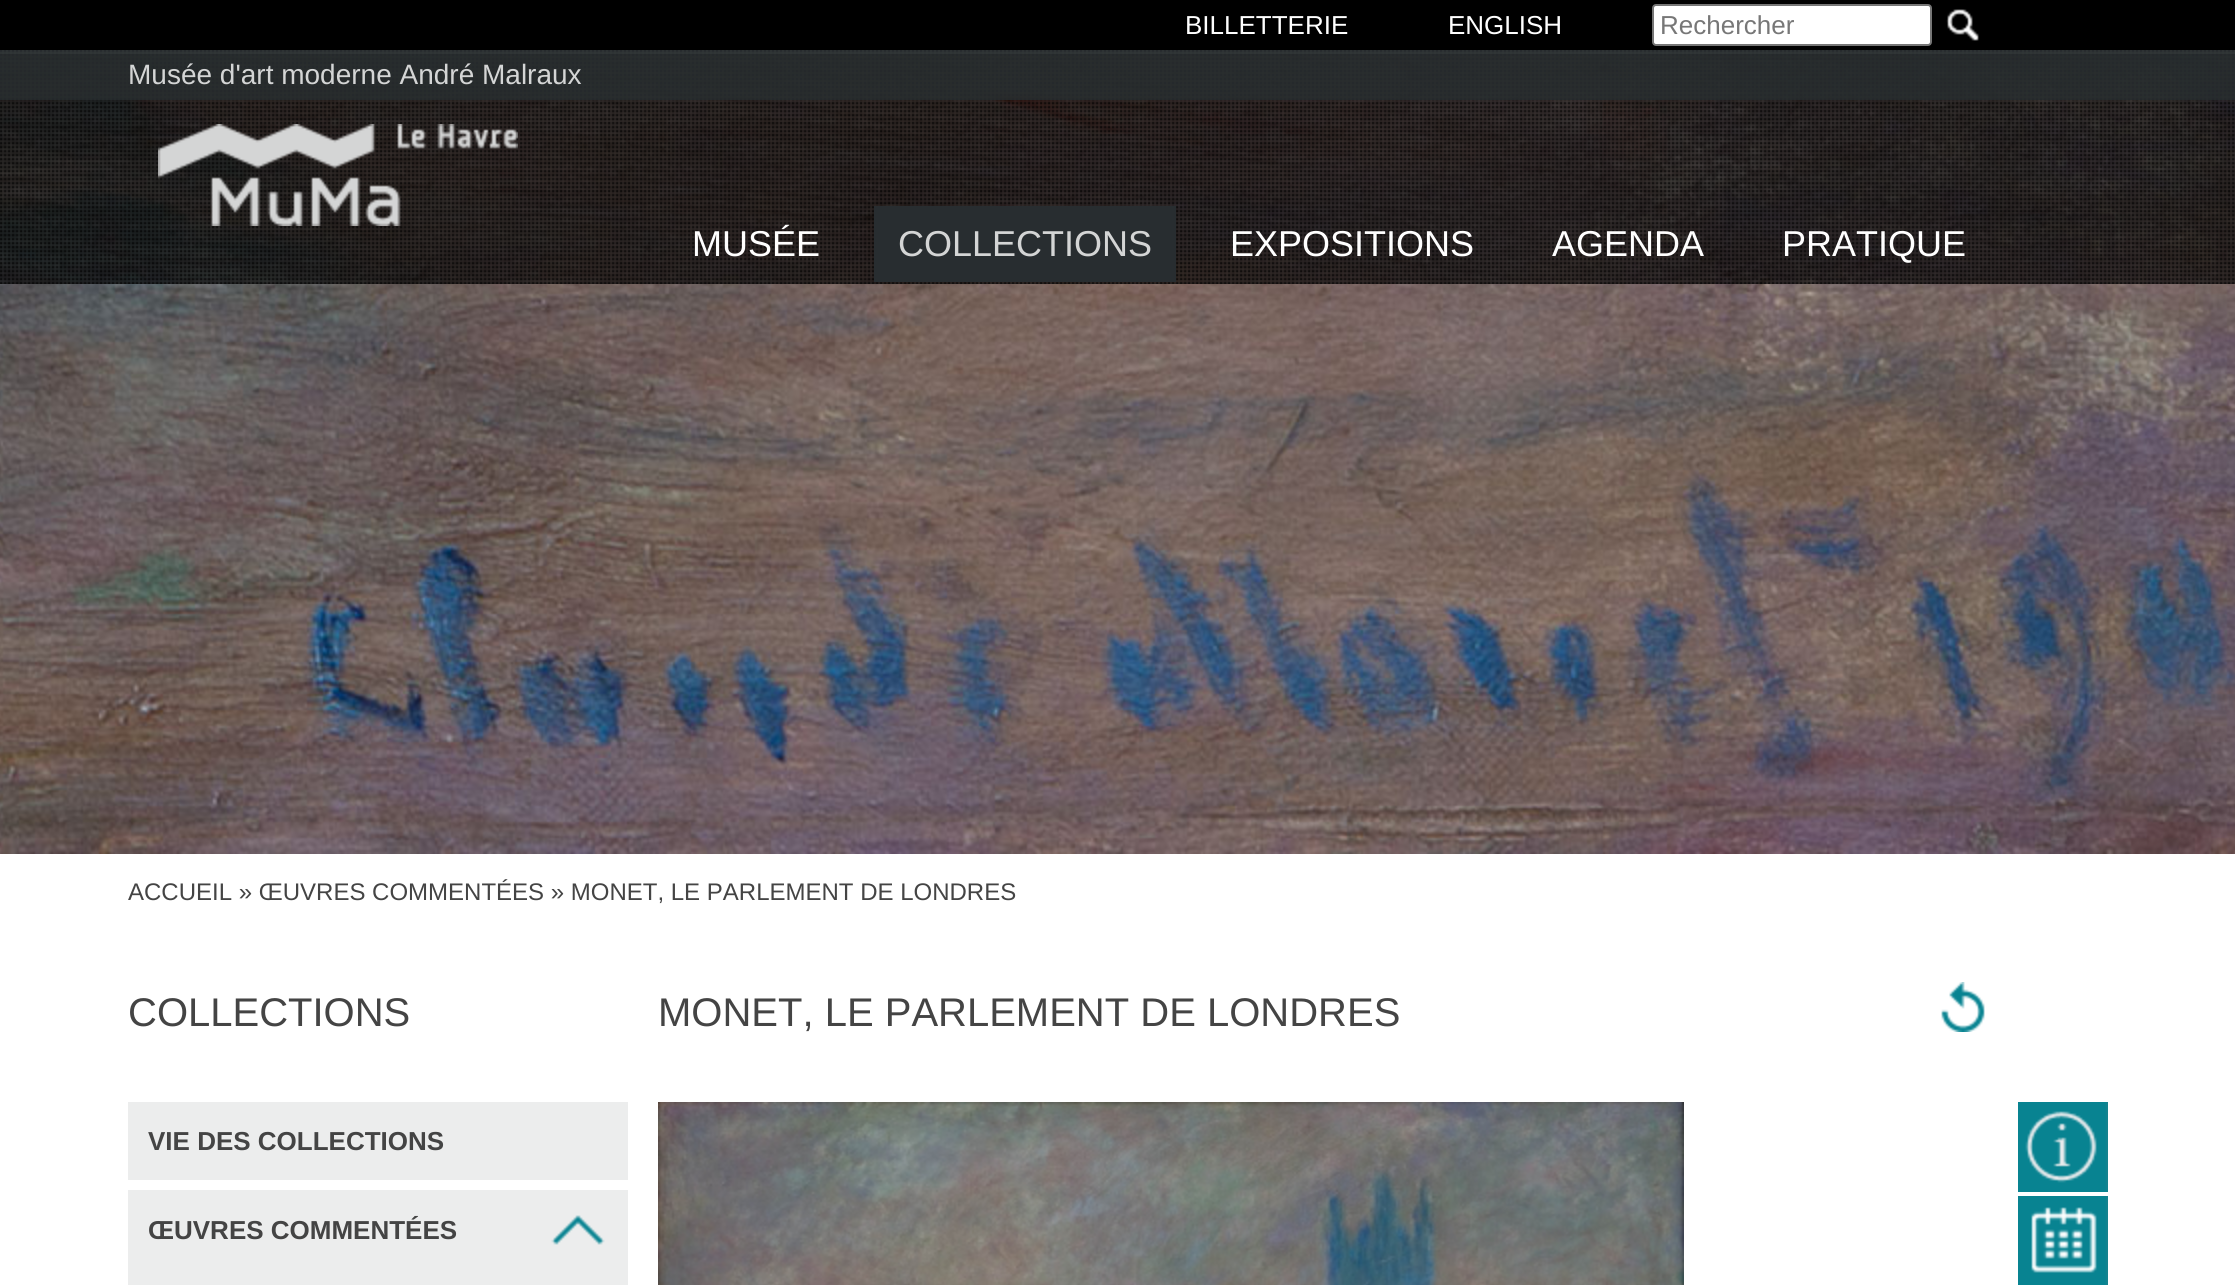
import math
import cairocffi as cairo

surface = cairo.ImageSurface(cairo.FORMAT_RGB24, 2235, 1285)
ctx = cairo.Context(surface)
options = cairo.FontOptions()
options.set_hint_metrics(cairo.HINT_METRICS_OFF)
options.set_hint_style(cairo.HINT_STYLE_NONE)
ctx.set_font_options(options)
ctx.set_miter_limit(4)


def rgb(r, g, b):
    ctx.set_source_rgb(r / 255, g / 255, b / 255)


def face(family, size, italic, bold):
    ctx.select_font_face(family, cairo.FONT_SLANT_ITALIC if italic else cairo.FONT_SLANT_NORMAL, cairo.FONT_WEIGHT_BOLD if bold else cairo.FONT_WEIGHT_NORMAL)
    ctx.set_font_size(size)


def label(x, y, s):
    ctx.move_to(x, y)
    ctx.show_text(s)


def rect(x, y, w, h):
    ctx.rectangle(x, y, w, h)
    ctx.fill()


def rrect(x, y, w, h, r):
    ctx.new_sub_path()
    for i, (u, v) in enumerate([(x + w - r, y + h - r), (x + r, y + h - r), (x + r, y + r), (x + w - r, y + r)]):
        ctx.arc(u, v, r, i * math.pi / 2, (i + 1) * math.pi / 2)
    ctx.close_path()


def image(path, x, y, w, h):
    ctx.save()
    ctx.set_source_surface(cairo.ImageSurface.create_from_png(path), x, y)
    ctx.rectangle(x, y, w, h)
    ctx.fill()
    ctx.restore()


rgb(255, 255, 255)
ctx.paint()
rgb(0, 0, 0)
rect(0, 0, 2235, 50)
face('Liberation Sans', 26, 0, 0)
rgb(255, 255, 255)
label(1185, 34, 'BILLETTERIE')
label(1448, 34, 'ENGLISH')
rrect(1653, 5, 278, 40, 3)
ctx.fill_preserve()
rgb(118, 118, 118)
ctx.stroke()
rgb(119, 119, 119)
label(1660, 34, 'Rechercher')
image('image0.png', 1946, 9, 33, 32)
image('image1.png', 0, 54, 2235, 800)
image('image2.png', 0, 50, 2235, 50)
face('Liberation Sans', 28, 0, 0)
rgb(212, 213, 213)
label(128, 84, 'Musée d\'art moderne André Malraux')
image('image3.png', 0, 100, 2235, 184)
image('image4.png', 158, 124, 360, 102)
face('Liberation Sans', 36, 0, 0)
rgb(255, 255, 255)
label(692, 256, 'MUSÉE')
rgb(40, 45, 48)
rect(874, 206, 302, 76)
rgb(212, 213, 213)
label(898, 256, 'COLLECTIONS')
rgb(255, 255, 255)
label(1230, 256, 'EXPOSITIONS')
label(1552, 256, 'AGENDA')
label(1782, 256, 'PRATIQUE')
face('Liberation Sans', 24, 0, 0)
rgb(68, 68, 68)
label(128, 900, 'ACCUEIL » ŒUVRES COMMENTÉES » MONET, LE PARLEMENT DE LONDRES')
face('Liberation Sans', 40, 0, 0)
label(128, 1026, 'COLLECTIONS')
rgb(236, 237, 237)
rect(128, 1102, 500, 78)
face('Liberation Sans', 26, 0, 1)
rgb(68, 68, 68)
label(148, 1150, 'VIE DES COLLECTIONS')
rgb(236, 237, 237)
rect(128, 1190, 500, 95)
image('image5.png', 551, 1215, 54, 30)
rgb(68, 68, 68)
label(148, 1239, 'ŒUVRES COMMENTÉES')
face('Liberation Sans', 40, 0, 0)
label(658, 1026, 'MONET, LE PARLEMENT DE LONDRES')
image('image6.png', 1941, 982, 44, 50)
image('image7.png', 658, 1102, 1026, 183)
image('image8.png', 2018, 1102, 90, 90)
image('image9.png', 2018, 1196, 90, 89)
surface.write_to_png('render.png')
